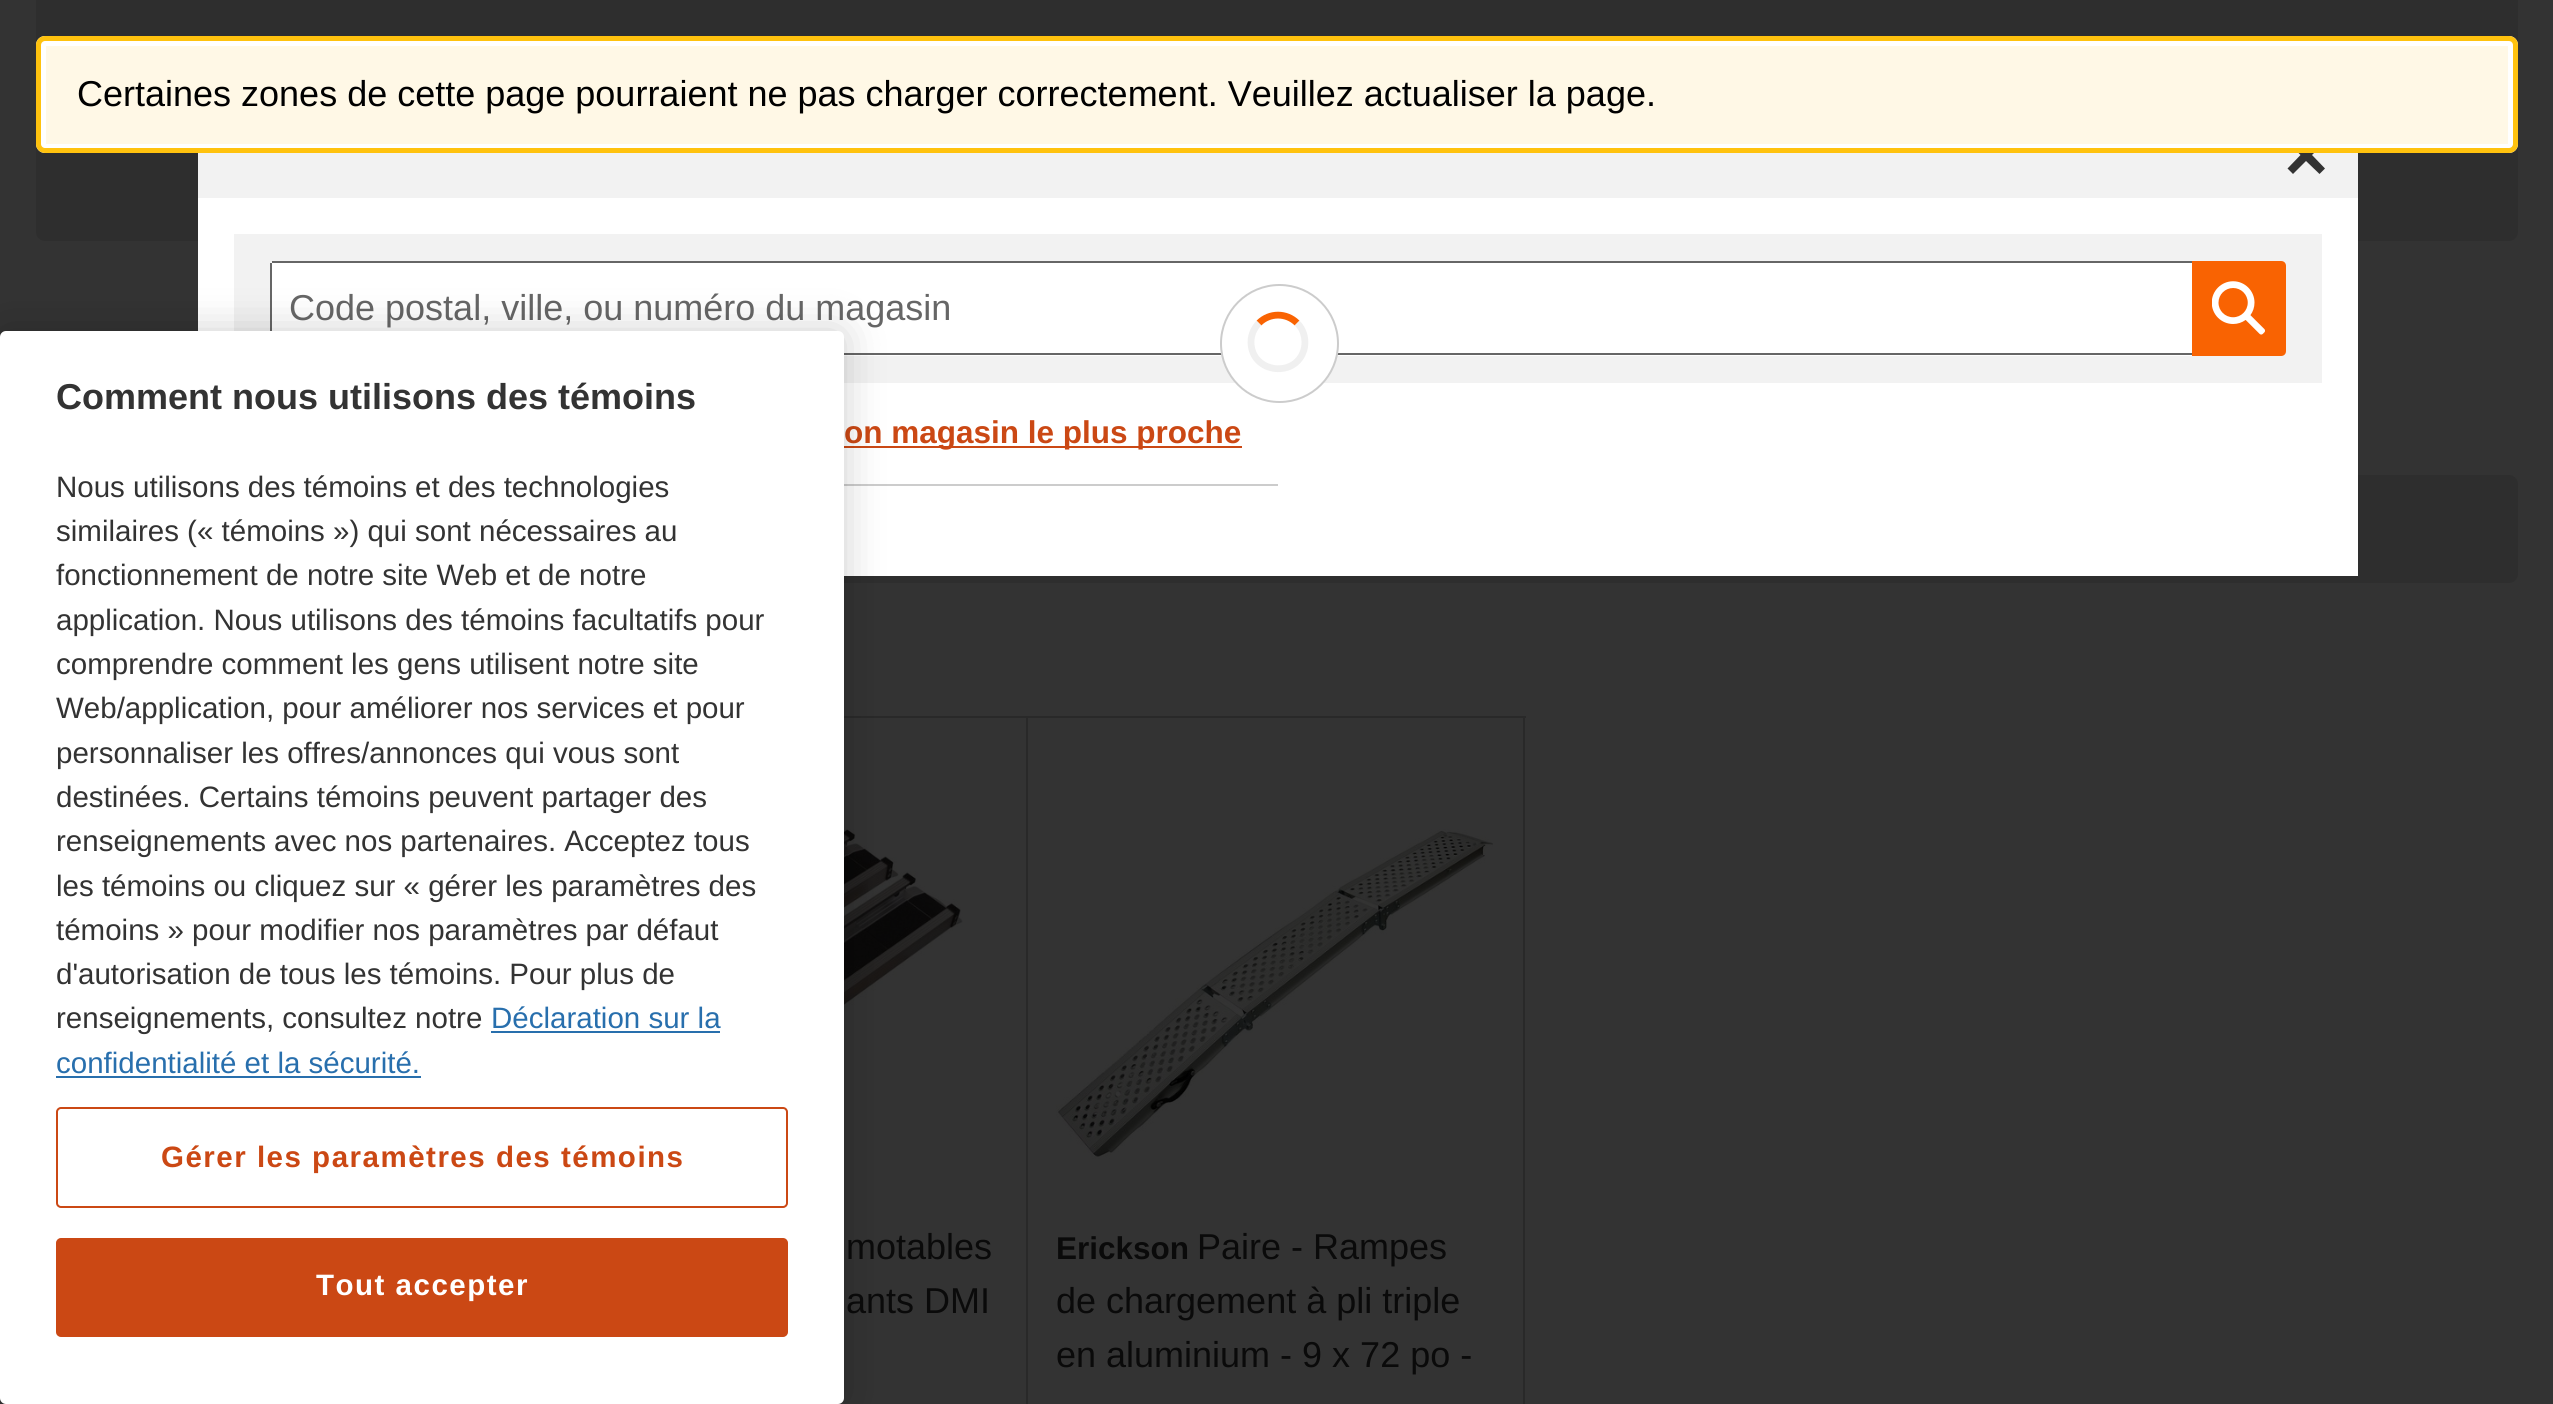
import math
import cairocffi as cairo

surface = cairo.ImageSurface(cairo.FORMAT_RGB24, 2553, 1404)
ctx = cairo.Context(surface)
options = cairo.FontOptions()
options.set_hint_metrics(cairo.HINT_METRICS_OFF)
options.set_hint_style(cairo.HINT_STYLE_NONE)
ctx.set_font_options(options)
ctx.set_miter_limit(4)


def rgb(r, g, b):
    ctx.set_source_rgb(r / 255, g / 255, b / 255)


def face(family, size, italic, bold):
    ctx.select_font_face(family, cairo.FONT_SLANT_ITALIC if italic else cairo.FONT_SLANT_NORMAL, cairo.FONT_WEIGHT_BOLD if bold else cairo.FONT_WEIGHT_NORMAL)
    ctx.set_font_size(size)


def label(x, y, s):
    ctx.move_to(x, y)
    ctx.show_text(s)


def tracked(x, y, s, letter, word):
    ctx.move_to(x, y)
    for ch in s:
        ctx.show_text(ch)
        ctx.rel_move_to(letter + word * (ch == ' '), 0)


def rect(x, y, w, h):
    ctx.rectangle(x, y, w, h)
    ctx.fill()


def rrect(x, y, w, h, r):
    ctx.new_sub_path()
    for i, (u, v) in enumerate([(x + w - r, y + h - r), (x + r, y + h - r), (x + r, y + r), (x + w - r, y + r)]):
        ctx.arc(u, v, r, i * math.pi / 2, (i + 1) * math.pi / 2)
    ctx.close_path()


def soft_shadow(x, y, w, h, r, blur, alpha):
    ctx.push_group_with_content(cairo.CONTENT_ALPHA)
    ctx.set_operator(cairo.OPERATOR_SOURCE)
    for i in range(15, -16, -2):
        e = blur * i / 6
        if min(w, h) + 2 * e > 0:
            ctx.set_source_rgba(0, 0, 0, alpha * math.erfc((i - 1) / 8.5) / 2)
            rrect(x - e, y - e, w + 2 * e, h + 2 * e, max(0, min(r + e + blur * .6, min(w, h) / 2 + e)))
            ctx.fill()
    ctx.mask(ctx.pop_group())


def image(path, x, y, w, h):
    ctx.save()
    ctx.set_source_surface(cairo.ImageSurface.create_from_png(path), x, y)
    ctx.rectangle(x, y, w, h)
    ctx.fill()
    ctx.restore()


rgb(51, 51, 51)
ctx.paint()
rgb(46, 46, 46)
rrect(36, -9, 2482, 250, 9)
ctx.fill()
rgb(242, 242, 242)
rect(198, 153, 2160, 45)
rgb(51, 51, 51)
ctx.set_fill_rule(cairo.FILL_RULE_EVEN_ODD)
ctx.new_path()
ctx.move_to(2312, 155)
ctx.line_to(2325, 142)
ctx.line_to(2319.5, 136.5)
ctx.line_to(2306, 149.5)
ctx.line_to(2293, 136.5)
ctx.line_to(2287.5, 142)
ctx.line_to(2300.5, 155)
ctx.line_to(2287.5, 168.5)
ctx.line_to(2293, 174)
ctx.line_to(2306, 161)
ctx.line_to(2319.5, 174)
ctx.line_to(2325, 168.5)
ctx.fill()
rgb(255, 248, 230)
rrect(36, 36, 2482, 117, 9)
ctx.fill()
rrect(43.5, 43.5, 2467, 103, 2.5)
rgb(255, 255, 255)
ctx.set_line_width(5)
ctx.stroke()
rrect(38.5, 38.5, 2477, 112, 6.5)
rgb(255, 194, 14)
ctx.stroke()
face('Liberation Sans', 36, 0, 0)
rgb(0, 0, 0)
label(77, 106, 'Certaines zones de cette page pourraient ne pas charger correctement. Veuillez actualiser la page.')
rgb(46, 46, 46)
rrect(36, 475, 2482, 108, 9)
ctx.fill()
rgb(255, 255, 255)
rect(198, 198, 2160, 378)
rgb(242, 242, 242)
rect(234, 234, 2088, 149)
rgb(255, 255, 255)
ctx.new_path()
ctx.move_to(275, 261)
ctx.line_to(2192, 261)
ctx.line_to(2192, 356)
ctx.line_to(275, 356)
ctx.curve_to(272, 356, 270, 354, 270, 351)
ctx.line_to(270, 266)
ctx.curve_to(270, 263, 272, 261, 275, 261)
ctx.close_path()
ctx.fill()
rgb(102, 102, 102)
rect(272, 261, 1920, 2)
rect(844, 353, 1348, 2)
rect(270, 263, 2, 68)
label(289, 320, 'Code postal, ville, ou numéro du magasin')
rgb(249, 99, 2)
ctx.new_path()
ctx.move_to(2192, 261)
ctx.line_to(2281, 261)
ctx.curve_to(2284, 261, 2286, 263, 2286, 266)
ctx.line_to(2286, 351)
ctx.curve_to(2286, 354, 2284, 356, 2281, 356)
ctx.line_to(2192, 356)
ctx.close_path()
ctx.fill()
image('image0.png', 2212, 281, 53, 54)
rgb(255, 255, 255)
ctx.arc(1279.5, 343.5, 58.5, 0, 2 * math.pi)
ctx.fill_preserve()
rgb(204, 204, 204)
ctx.set_line_width(2)
ctx.stroke()
ctx.new_path()
ctx.move_to(1259, 323)
ctx.curve_to(1269.5, 312.5, 1286.5, 312.5, 1297, 323)
rgb(249, 99, 2)
ctx.set_line_width(6.8)
ctx.stroke()
ctx.new_path()
ctx.move_to(1297, 323)
ctx.curve_to(1303.5, 329, 1306, 338.5, 1304.5, 347.5)
ctx.curve_to(1298, 379, 1251, 374, 1251, 342)
ctx.curve_to(1251, 335, 1254, 328, 1259, 323)
ctx.set_source_rgba(0.8, 0.8, 0.8, 0.3)
ctx.stroke()
rgb(204, 204, 204)
rect(844, 484, 434, 2)
rgb(203, 72, 20)
rect(844, 446, 398, 2)
face('Liberation Sans', 31.5, 0, 1)
label(844, 443, 'on magasin le plus proche')
rgb(41, 41, 41)
rect(844, 716, 682, 2)
rect(1026, 716, 2, 688)
image('image1.png', 844, 829, 119, 275)
face('Liberation Sans', 36, 0, 0)
rgb(10, 10, 10)
label(846, 1259, 'motables')
label(846, 1313, 'ants DMI')
rgb(41, 41, 41)
rect(1523, 716, 2, 688)
image('image2.png', 1055, 829, 438, 330)
face('Liberation Sans', 31.5, 0, 1)
rgb(10, 10, 10)
label(1056, 1259, 'Erickson')
face('Liberation Sans', 36, 0, 0)
label(1197, 1259, 'Paire - Rampes')
label(1056, 1313, 'de chargement à pli triple')
label(1056, 1367, 'en aluminium - 9 x 72 po -')
rgb(0, 0, 0)
soft_shadow(0, 331, 844, 1073, 6, 20, 0.2)
rgb(255, 255, 255)
rrect(0, 331, 844, 1073, 6)
ctx.fill()
face('Liberation Sans', 36, 0, 1)
rgb(51, 51, 51)
label(56, 409, 'Comment nous utilisons des témoins')
face('Liberation Sans', 29.5, 0, 0)
label(56, 497, 'Nous utilisons des témoins et des technologies')
label(56, 541, 'similaires (« témoins ») qui sont nécessaires au')
label(56, 585, 'fonctionnement de notre site Web et de notre')
label(56, 630, 'application. Nous utilisons des témoins facultatifs pour')
label(56, 674, 'comprendre comment les gens utilisent notre site')
label(56, 718, 'Web/application, pour améliorer nos services et pour')
label(56, 763, 'personnaliser les offres/annonces qui vous sont')
label(56, 807, 'destinées. Certains témoins peuvent partager des')
label(56, 851, 'renseignements avec nos partenaires. Acceptez tous')
label(56, 896, 'les témoins ou cliquez sur « gérer les paramètres des')
label(56, 940, 'témoins » pour modifier nos paramètres par défaut')
label(56, 984, 'd\'autorisation de tous les témoins. Pour plus de')
label(56, 1028, 'renseignements, consultez notre')
rgb(40, 111, 173)
label(491, 1028, 'Déclaration sur la')
rect(491, 1031, 229, 2)
label(56, 1073, 'confidentialité et la sécurité.')
rect(56, 1076, 365, 2)
rrect(57, 1108, 730, 99, 4)
rgb(203, 72, 20)
ctx.set_line_width(2)
ctx.stroke()
face('Liberation Sans', 29.5, 0, 1)
tracked(161, 1167, 'Gérer les paramètres des témoins', 1.5, 0)
rrect(57, 1239, 730, 97, 4)
ctx.fill_preserve()
ctx.stroke()
rgb(255, 255, 255)
tracked(316, 1295, 'Tout accepter', 1.5, 0)
surface.write_to_png('render.png')
